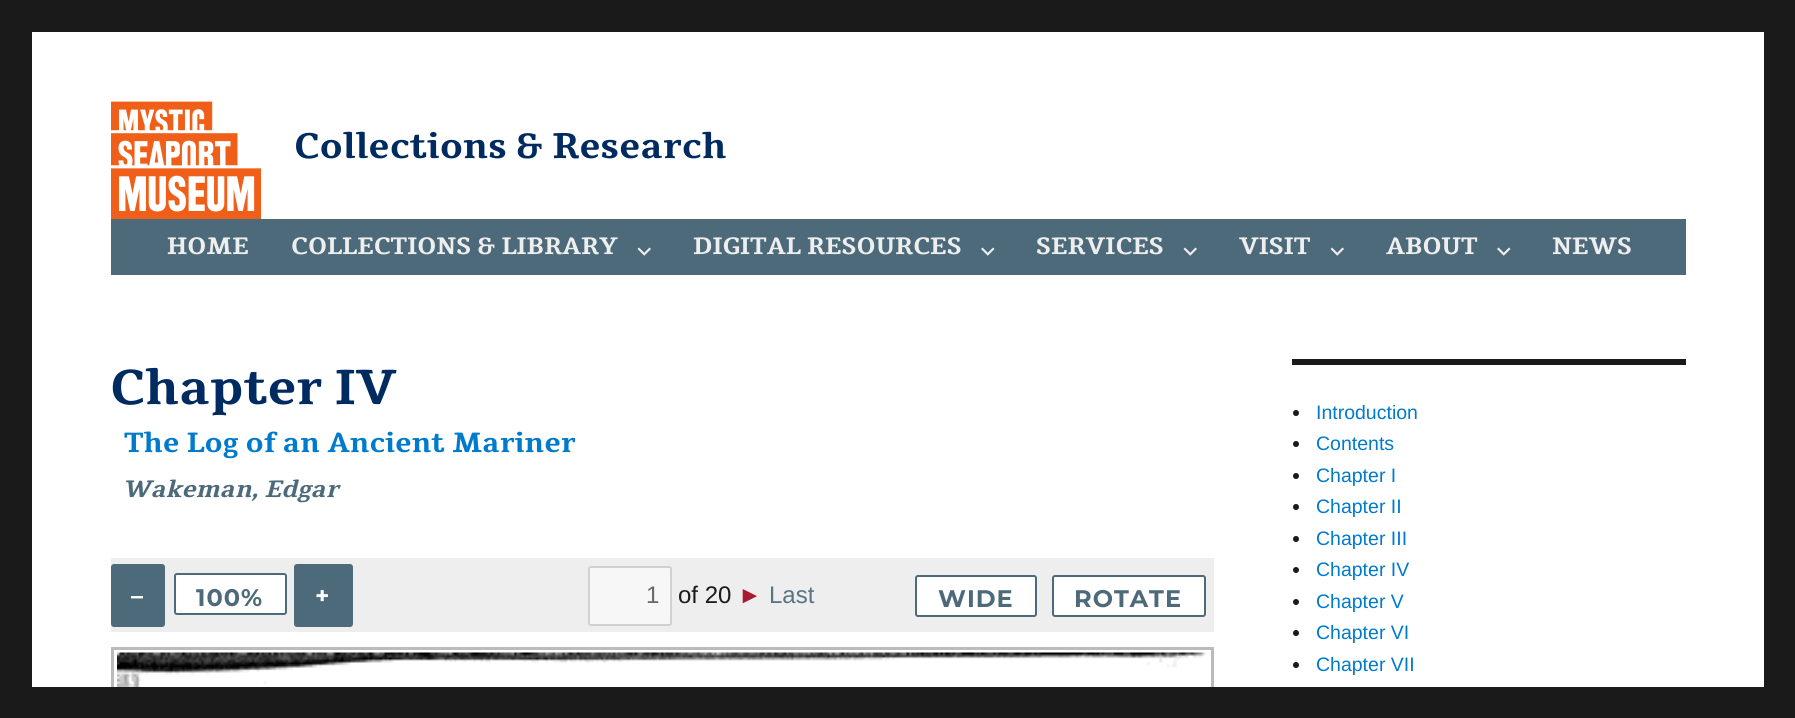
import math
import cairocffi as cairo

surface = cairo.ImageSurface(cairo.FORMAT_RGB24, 1795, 718)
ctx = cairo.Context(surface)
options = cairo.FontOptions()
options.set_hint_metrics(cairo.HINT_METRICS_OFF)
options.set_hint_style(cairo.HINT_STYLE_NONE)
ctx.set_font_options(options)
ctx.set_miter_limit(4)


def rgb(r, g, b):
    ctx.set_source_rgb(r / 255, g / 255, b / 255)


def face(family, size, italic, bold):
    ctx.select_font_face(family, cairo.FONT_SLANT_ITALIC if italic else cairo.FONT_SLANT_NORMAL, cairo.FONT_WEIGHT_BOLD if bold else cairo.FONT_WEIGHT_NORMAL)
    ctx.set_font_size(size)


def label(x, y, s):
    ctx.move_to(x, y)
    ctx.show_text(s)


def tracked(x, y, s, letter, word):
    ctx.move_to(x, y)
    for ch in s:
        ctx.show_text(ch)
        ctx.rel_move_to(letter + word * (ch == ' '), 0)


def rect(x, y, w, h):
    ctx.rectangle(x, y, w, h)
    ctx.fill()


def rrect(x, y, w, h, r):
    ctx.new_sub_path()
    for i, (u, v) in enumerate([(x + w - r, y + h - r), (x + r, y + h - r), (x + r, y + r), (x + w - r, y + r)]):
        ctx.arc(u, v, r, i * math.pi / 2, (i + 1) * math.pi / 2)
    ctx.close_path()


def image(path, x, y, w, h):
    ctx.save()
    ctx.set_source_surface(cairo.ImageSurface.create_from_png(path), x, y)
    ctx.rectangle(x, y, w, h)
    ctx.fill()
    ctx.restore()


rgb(26, 26, 26)
ctx.paint()
rgb(255, 255, 255)
rect(32, 32, 1732, 655)
image('image0.png', 111, 101, 150, 118)
face('Tienne', 36, 0, 1)
rgb(0, 43, 96)
label(294, 158, 'Collections & Research')
rgb(77, 106, 123)
rect(111, 219, 1575, 56)
face('Tienne', 24, 0, 1)
rgb(238, 238, 238)
label(167, 254, 'HOME')
label(291, 254, 'COLLECTIONS & LIBRARY')
image('image1.png', 637, 247, 14, 9)
label(693, 254, 'DIGITAL RESOURCES')
image('image2.png', 981, 247, 14, 9)
label(1036, 254, 'SERVICES')
image('image1.png', 1183, 247, 14, 9)
label(1239, 254, 'VISIT')
image('image1.png', 1330, 247, 14, 9)
label(1386, 254, 'ABOUT')
image('image2.png', 1497, 247, 14, 9)
label(1552, 254, 'NEWS')
face('Tienne', 49.5, 0, 1)
rgb(0, 43, 96)
label(110, 404, 'Chapter IV')
face('Tienne', 28.1, 0, 1)
rgb(0, 122, 204)
label(124, 452, 'The Log of an Ancient Mariner')
face('Tienne', 24, 1, 1)
rgb(77, 106, 123)
label(122, 497, 'Wakeman, Edgar')
rgb(238, 238, 238)
rect(111, 558, 1103, 74)
rgb(77, 106, 123)
rrect(111, 564, 54, 63, 3)
ctx.fill()
face('Montserrat', 24, 0, 1)
rgb(255, 255, 255)
tracked(131, 604, '–', 1, 0)
rrect(175, 574, 111, 40, 2)
ctx.fill_preserve()
rgb(77, 106, 123)
ctx.stroke()
tracked(196, 606, '100%', 1, 0)
rrect(294, 564, 59, 63, 3)
ctx.fill()
rgb(255, 255, 255)
tracked(315, 604, '+', 1, 0)
rgb(247, 247, 247)
rrect(589, 567, 82, 58, 2)
ctx.fill_preserve()
rgb(209, 209, 209)
ctx.stroke()
face('Liberation Sans', 24, 0, 0)
rgb(104, 104, 104)
label(646, 603, '1')
rgb(26, 26, 26)
label(678, 603, 'of 20')
rgb(166, 26, 50)
label(738, 603, '►')
rgb(88, 116, 133)
label(769, 603, 'Last')
rgb(255, 255, 255)
rrect(916, 576, 120, 40, 2)
ctx.fill_preserve()
rgb(77, 106, 123)
ctx.stroke()
face('Montserrat', 24, 0, 1)
tracked(938, 607, 'WIDE', 1, 0)
rgb(255, 255, 255)
rrect(1053, 576, 152, 40, 2)
ctx.fill_preserve()
rgb(77, 106, 123)
ctx.stroke()
tracked(1074, 607, 'ROTATE', 1, 0)
ctx.rectangle(112.5, 648.5, 1100, 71)
rgb(187, 187, 187)
ctx.set_line_width(3)
ctx.stroke()
image('image3.png', 117, 652, 1089, 35)
rgb(26, 26, 26)
rect(1292, 359, 394, 6)
ctx.arc(1296, 413, 3, 0, 2 * math.pi)
ctx.fill()
face('Liberation Sans', 19.5, 0, 0)
rgb(0, 122, 204)
label(1316, 419, 'Introduction')
rgb(26, 26, 26)
ctx.new_path()
ctx.arc(1296, 444, 3, 0, 2 * math.pi)
ctx.fill()
rgb(0, 122, 204)
label(1316, 450, 'Contents')
rgb(26, 26, 26)
ctx.new_path()
ctx.arc(1296, 476, 3, 0, 2 * math.pi)
ctx.fill()
rgb(0, 122, 204)
label(1316, 482, 'Chapter I')
rgb(26, 26, 26)
ctx.new_path()
ctx.arc(1296, 507, 3, 0, 2 * math.pi)
ctx.fill()
rgb(0, 122, 204)
label(1316, 513, 'Chapter II')
rgb(26, 26, 26)
ctx.new_path()
ctx.arc(1296, 539, 3, 0, 2 * math.pi)
ctx.fill()
rgb(0, 122, 204)
label(1316, 545, 'Chapter III')
rgb(26, 26, 26)
ctx.new_path()
ctx.arc(1296, 570, 3, 0, 2 * math.pi)
ctx.fill()
rgb(0, 122, 204)
label(1316, 576, 'Chapter IV')
rgb(26, 26, 26)
ctx.new_path()
ctx.arc(1296, 602, 3, 0, 2 * math.pi)
ctx.fill()
rgb(0, 122, 204)
label(1316, 608, 'Chapter V')
rgb(26, 26, 26)
ctx.new_path()
ctx.arc(1296, 633, 3, 0, 2 * math.pi)
ctx.fill()
rgb(0, 122, 204)
label(1316, 639, 'Chapter VI')
rgb(26, 26, 26)
ctx.new_path()
ctx.arc(1296, 665, 3, 0, 2 * math.pi)
ctx.fill()
rgb(0, 122, 204)
label(1316, 671, 'Chapter VII')
rgb(26, 26, 26)
rect(111, 687, 1103, 31)
surface.write_to_png('render.png')
